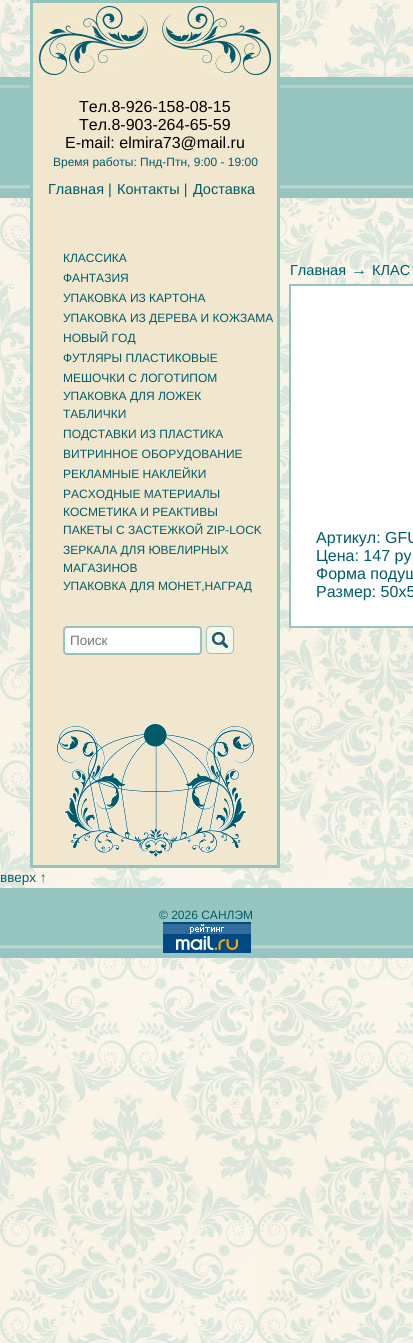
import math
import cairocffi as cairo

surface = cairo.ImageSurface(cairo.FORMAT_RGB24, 413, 1343)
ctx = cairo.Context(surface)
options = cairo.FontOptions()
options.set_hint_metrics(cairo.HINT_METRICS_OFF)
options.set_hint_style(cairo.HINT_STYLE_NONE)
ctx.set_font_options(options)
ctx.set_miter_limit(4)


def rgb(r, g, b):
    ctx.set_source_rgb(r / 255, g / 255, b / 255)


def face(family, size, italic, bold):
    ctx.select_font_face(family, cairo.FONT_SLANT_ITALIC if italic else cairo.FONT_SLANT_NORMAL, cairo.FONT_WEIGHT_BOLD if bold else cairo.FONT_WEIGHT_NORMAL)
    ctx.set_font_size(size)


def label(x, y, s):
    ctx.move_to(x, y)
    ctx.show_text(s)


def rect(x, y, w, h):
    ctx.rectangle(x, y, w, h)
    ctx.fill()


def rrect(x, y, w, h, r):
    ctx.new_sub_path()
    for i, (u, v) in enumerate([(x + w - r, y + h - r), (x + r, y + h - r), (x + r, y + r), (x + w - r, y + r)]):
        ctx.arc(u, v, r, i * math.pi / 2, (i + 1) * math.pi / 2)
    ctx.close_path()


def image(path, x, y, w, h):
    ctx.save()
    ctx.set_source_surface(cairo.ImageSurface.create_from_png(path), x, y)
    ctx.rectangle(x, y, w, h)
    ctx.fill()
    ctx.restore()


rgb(255, 255, 255)
ctx.paint()
image('image0.png', 0, 0, 413, 1343)
image('image1.png', 0, 77, 413, 121)
rgb(241, 231, 207)
rect(33, 3, 244, 862)
image('image2.png', 33, 3, 240, 72)
rgb(145, 197, 190)
rect(30, 0, 250, 3)
rect(277, 0, 3, 198)
rect(30, 0, 3, 198)
face('Liberation Sans', 16, 0, 0)
rgb(0, 0, 0)
label(79, 112, 'Тел.8-926-158-08-15')
label(79, 130, 'Тел.8-903-264-65-59')
label(65, 148, 'E-mail: elmira73@mail.ru')
face('Liberation Sans', 12, 0, 0)
rgb(0, 92, 105)
label(53, 166, 'Время работы: Пнд-Птн, 9:00 - 19:00')
face('Liberation Sans', 14.5, 0, 0)
label(48, 194, 'Главная |')
label(117, 194, 'Контакты |')
label(193, 194, 'Доставка')
image('image3.png', 57, 724, 197, 133)
rgb(145, 197, 190)
rect(277, 198, 3, 670)
rect(30, 865, 250, 3)
rect(30, 198, 3, 670)
face('Liberation Sans', 12, 0, 0)
rgb(0, 92, 105)
label(63, 262, 'КЛАССИКА')
label(63, 282, 'ФАНТАЗИЯ')
label(63, 302, 'УПАКОВКА ИЗ КАРТОНА')
label(63, 322, 'УПАКОВКА ИЗ ДЕРЕВА И КОЖЗАМА')
label(63, 342, 'НОВЫЙ ГОД')
label(63, 362, 'ФУТЛЯРЫ ПЛАСТИКОВЫЕ')
label(63, 382, 'МЕШОЧКИ С ЛОГОТИПОМ')
label(63, 400, 'УПАКОВКА ДЛЯ ЛОЖЕК')
label(63, 418, 'ТАБЛИЧКИ')
label(63, 438, 'ПОДСТАВКИ ИЗ ПЛАСТИКА')
label(63, 458, 'ВИТРИННОЕ ОБОРУДОВАНИЕ')
label(63, 478, 'РЕКЛАМНЫЕ НАКЛЕЙКИ')
label(63, 498, 'РАСХОДНЫЕ МАТЕРИАЛЫ')
label(63, 516, 'КОСМЕТИКА И РЕАКТИВЫ')
label(63, 534, 'ПАКЕТЫ С ЗАСТЕЖКОЙ ZIP-LOCK')
label(63, 554, 'ЗЕРКАЛА ДЛЯ ЮВЕЛИРНЫХ')
label(63, 572, 'МАГАЗИНОВ')
label(63, 590, 'УПАКОВКА ДЛЯ МОНЕТ,НАГРАД')
rgb(255, 255, 255)
rrect(64, 627, 137, 27, 3)
ctx.fill_preserve()
rgb(145, 197, 190)
ctx.stroke()
face('Liberation Sans', 13.5, 0, 0)
rgb(117, 117, 117)
label(70, 645, 'Поиск')
rgb(243, 248, 235)
rrect(206.5, 626.5, 27, 27, 4.5)
ctx.fill_preserve()
rgb(151, 197, 192)
ctx.set_line_width(1)
ctx.stroke()
image('image4.png', 212, 632, 16, 16)
face('Liberation Sans', 14.5, 0, 0)
rgb(0, 92, 105)
label(290, 275, 'Главная')
face('Liberation Sans', 16, 0, 0)
label(351, 275, '→')
face('Liberation Sans', 14.5, 0, 0)
label(372, 275, 'КЛАС')
rgb(255, 255, 255)
ctx.rectangle(290, 285, 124, 342)
ctx.fill_preserve()
rgb(145, 197, 190)
ctx.set_line_width(2)
ctx.stroke()
face('Liberation Sans', 16, 0, 0)
rgb(0, 92, 105)
label(316, 543, 'Артикул: GFU')
label(316, 561, 'Цена: 147 ру')
label(316, 579, 'Форма подуш')
label(316, 597, 'Размер: 50x5')
face('Liberation Sans', 13.5, 0, 0)
label(0, 882, 'вверх ↑')
image('image5.png', 0, 888, 413, 70)
face('Liberation Sans', 12, 0, 0)
label(159, 919, '© 2026 САНЛЭМ')
image('image6.png', 163, 922, 88, 31)
surface.write_to_png('render.png')
